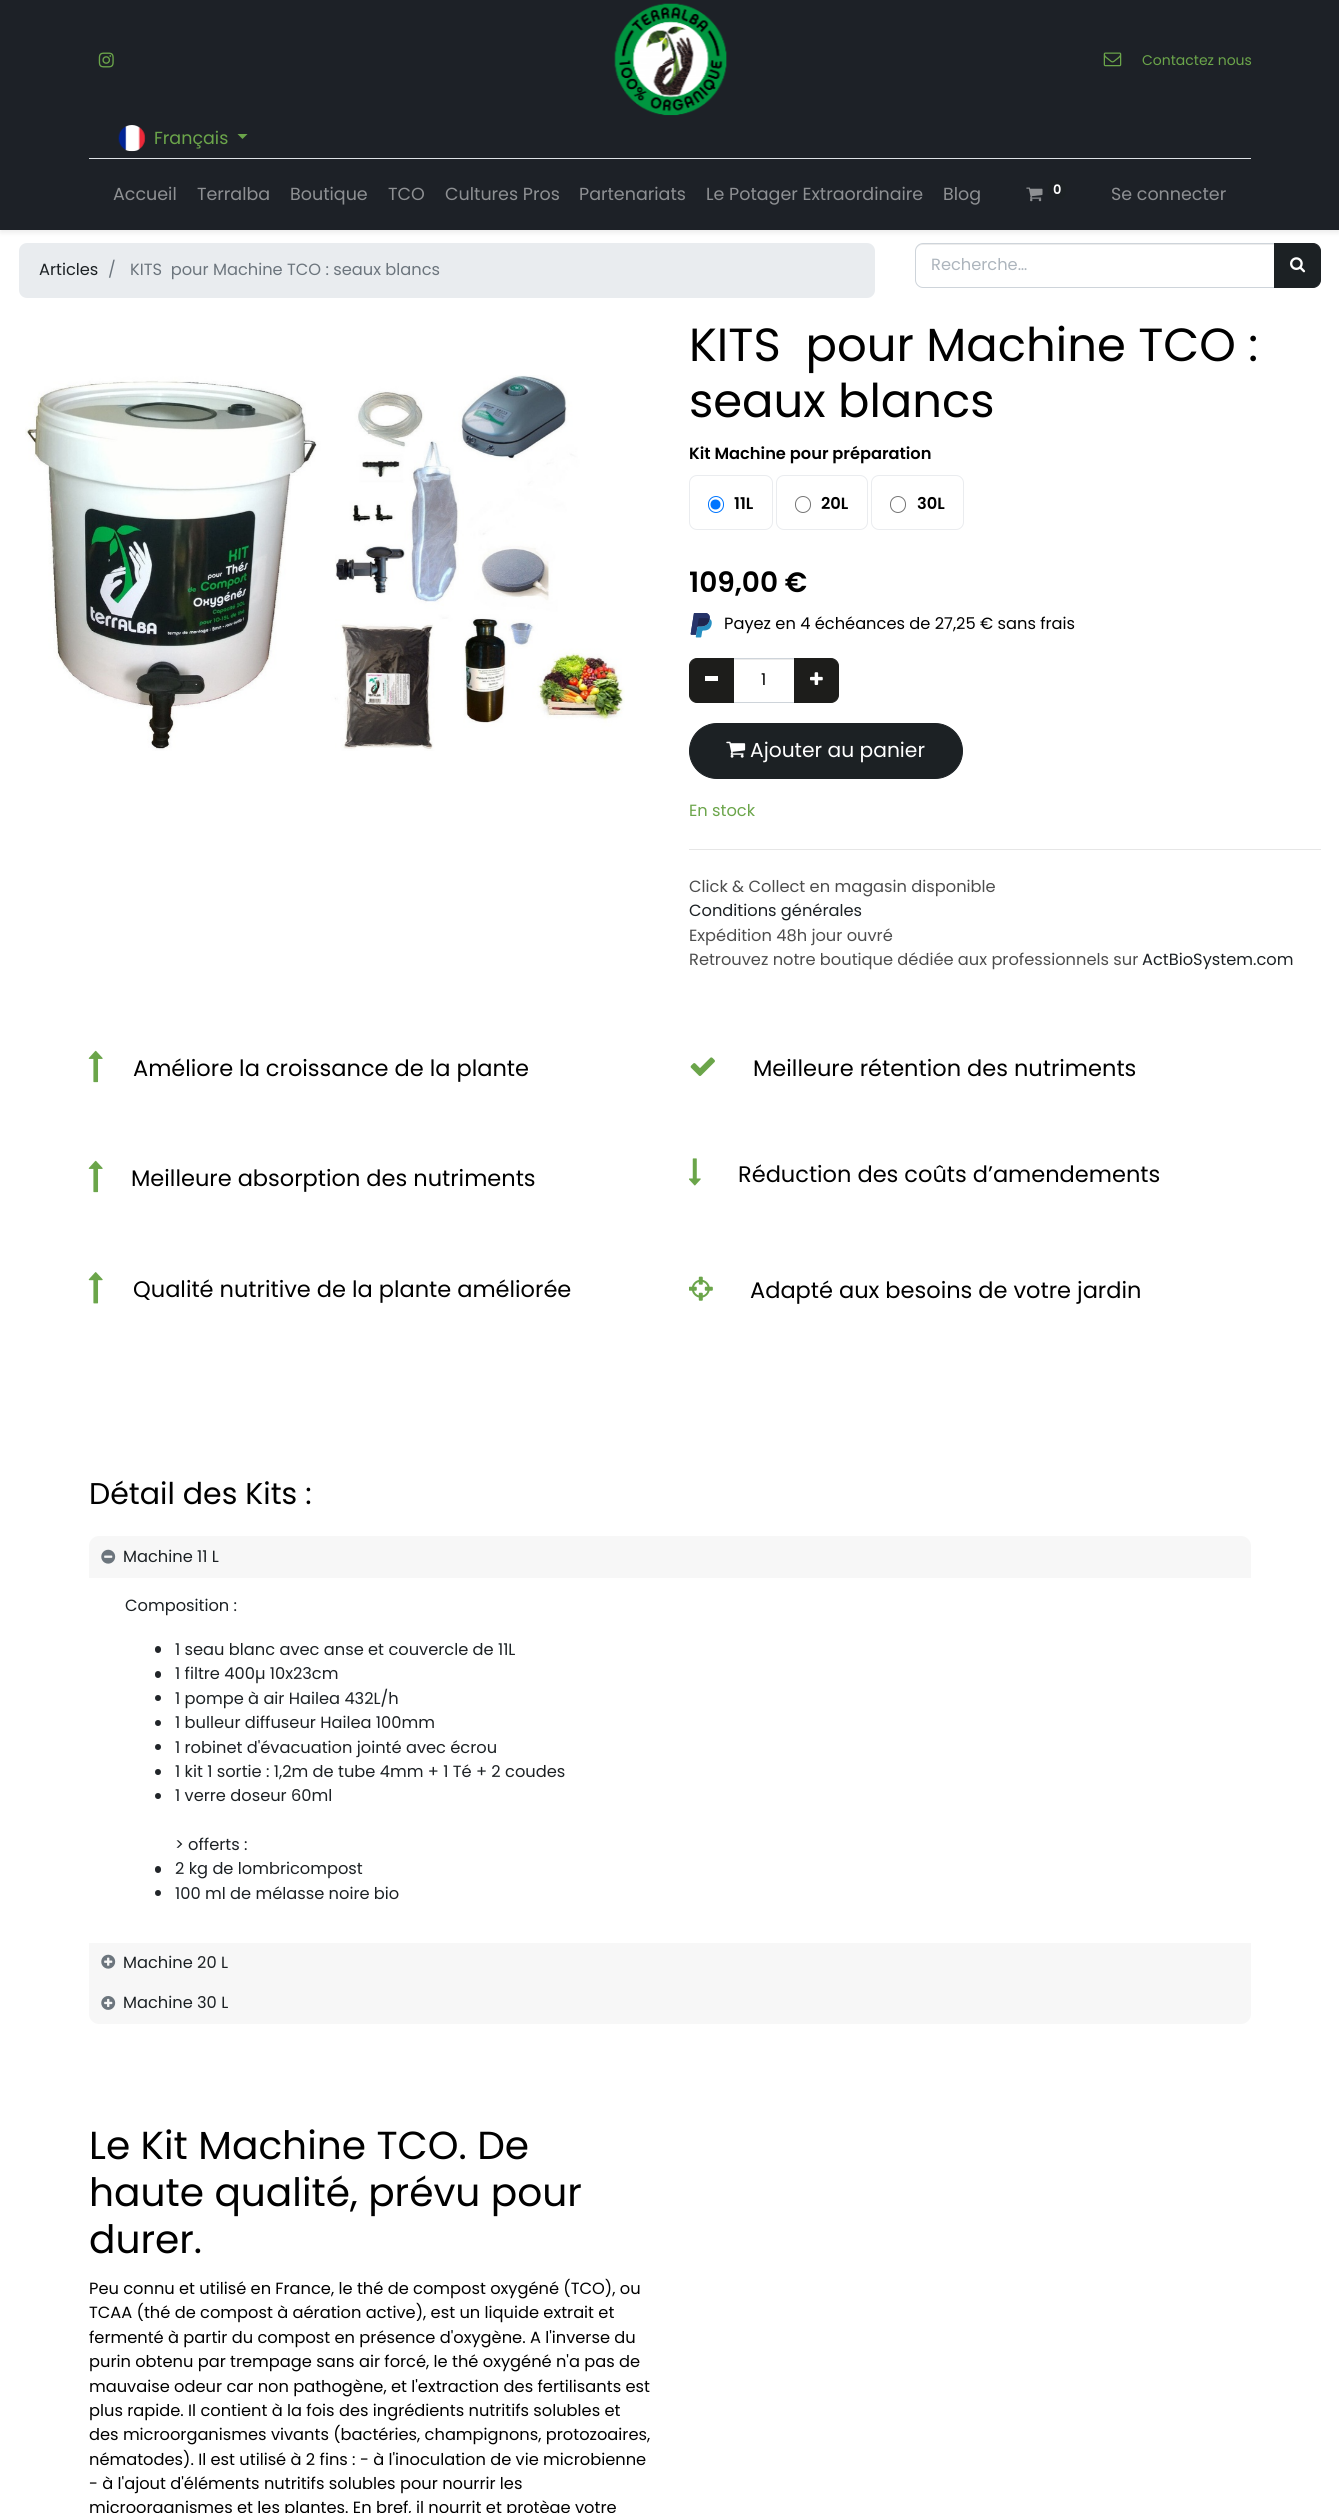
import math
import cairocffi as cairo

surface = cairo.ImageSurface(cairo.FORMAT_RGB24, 1339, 2513)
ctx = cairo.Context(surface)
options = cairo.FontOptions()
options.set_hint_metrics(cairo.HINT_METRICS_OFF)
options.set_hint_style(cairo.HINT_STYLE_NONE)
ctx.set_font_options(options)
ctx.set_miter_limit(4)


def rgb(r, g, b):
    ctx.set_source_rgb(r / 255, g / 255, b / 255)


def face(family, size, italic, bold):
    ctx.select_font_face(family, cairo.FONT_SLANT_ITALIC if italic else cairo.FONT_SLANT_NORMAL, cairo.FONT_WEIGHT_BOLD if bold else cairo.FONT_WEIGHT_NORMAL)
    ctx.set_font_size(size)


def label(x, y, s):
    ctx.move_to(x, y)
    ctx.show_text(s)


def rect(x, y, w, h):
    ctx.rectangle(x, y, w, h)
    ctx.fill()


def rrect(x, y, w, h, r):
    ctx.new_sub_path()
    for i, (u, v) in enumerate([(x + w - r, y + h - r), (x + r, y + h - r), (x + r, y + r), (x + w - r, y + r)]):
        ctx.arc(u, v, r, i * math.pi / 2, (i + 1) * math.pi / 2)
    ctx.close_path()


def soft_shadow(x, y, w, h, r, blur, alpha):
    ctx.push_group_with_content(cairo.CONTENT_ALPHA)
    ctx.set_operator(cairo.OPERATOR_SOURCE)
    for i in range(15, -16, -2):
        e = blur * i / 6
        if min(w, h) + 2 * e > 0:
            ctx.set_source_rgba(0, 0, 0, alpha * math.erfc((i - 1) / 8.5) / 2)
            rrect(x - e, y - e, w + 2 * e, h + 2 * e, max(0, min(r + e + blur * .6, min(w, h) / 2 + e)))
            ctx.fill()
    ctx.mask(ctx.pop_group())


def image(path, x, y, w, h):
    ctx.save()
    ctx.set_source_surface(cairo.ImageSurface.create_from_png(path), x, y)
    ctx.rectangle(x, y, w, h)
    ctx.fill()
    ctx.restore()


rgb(255, 255, 255)
ctx.paint()
rgb(0, 0, 0)
soft_shadow(0, 3, 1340, 230, 0, 2.5, 0.07)
rgb(29, 33, 39)
rect(0, 0, 1339, 230)
image('image0.png', 98, 52, 16, 16)
image('image1.png', 614, 3, 113, 113)
image('image2.png', 1103, 52, 19, 15)
face('Poppins', 14, 0, 0)
rgb(107, 165, 74)
label(1142, 65, 'Contactez nous')
image('image3.png', 118, 125, 28, 27)
face('Poppins', 17.5, 0, 0)
label(154, 144, 'Français')
ctx.new_path()
ctx.move_to(237.5, 134)
ctx.line_to(247.5, 134)
ctx.line_to(242.5, 139)
ctx.close_path()
ctx.fill()
rgb(222, 226, 230)
rect(89, 158, 1162, 1)
rgb(142, 144, 147)
label(113, 200, 'Accueil')
label(197, 200, 'Terralba')
label(290, 200, 'Boutique')
label(388, 200, 'TCO')
label(445, 200, 'Cultures Pros')
label(579, 200, 'Partenariats')
label(706, 200, 'Le Potager Extraordinaire')
label(943, 200, 'Blog')
image('image4.png', 1026, 187, 17, 15)
rgb(28, 33, 36)
rrect(1048, 180, 18, 20, 8)
ctx.fill()
face('Poppins SemiBold', 13, 0, 0)
rgb(255, 255, 255)
label(1053, 194, '0')
face('Poppins', 17.5, 0, 0)
rgb(142, 144, 147)
label(1111, 200, 'Se connecter')
rgb(233, 236, 239)
rrect(19, 243, 856, 55, 8)
ctx.fill()
face('Poppins', 16.25, 0, 0)
rgb(28, 33, 36)
label(39, 275, 'Articles')
rgb(108, 117, 125)
label(108, 275, '/')
label(130, 275, 'KITS  pour Machine TCO : seaux blancs')
rgb(236, 236, 236)
ctx.new_path()
ctx.move_to(922, 245)
ctx.line_to(1274, 245)
ctx.line_to(1274, 244)
ctx.line_to(922, 244)
ctx.curve_to(918, 244, 916, 247, 916, 251)
ctx.curve_to(916, 248, 919, 245, 922, 245)
ctx.close_path()
ctx.fill()
ctx.new_path()
ctx.move_to(923, 243.5)
ctx.line_to(1274.5, 243.5)
ctx.line_to(1274.5, 287.5)
ctx.line_to(923, 287.5)
ctx.curve_to(919, 287.5, 915.5, 284, 915.5, 280)
ctx.line_to(915.5, 251)
ctx.curve_to(915.5, 247, 919, 243.5, 923, 243.5)
ctx.close_path()
rgb(206, 212, 218)
ctx.set_line_width(1)
ctx.stroke()
rgb(173, 181, 189)
label(931, 270, 'Recherche…')
rgb(28, 33, 36)
ctx.new_path()
ctx.move_to(1274.5, 243.5)
ctx.line_to(1313, 243.5)
ctx.curve_to(1317, 243.5, 1320.5, 247, 1320.5, 251)
ctx.line_to(1320.5, 280)
ctx.curve_to(1320.5, 284, 1317, 287.5, 1313, 287.5)
ctx.line_to(1274.5, 287.5)
ctx.close_path()
ctx.fill_preserve()
ctx.stroke()
image('image5.png', 1290, 257, 16, 16)
image('image6.png', 25, 375, 600, 376)
face('Poppins', 46.5, 0, 0)
rgb(0, 0, 0)
label(689, 361, 'KITS  pour Machine TCO :')
label(689, 417, 'seaux blancs')
face('Poppins SemiBold', 16.25, 0, 0)
label(689, 459, 'Kit Machine pour préparation')
rrect(689.5, 475.5, 83, 54, 7.5)
rgb(234, 236, 239)
ctx.stroke()
rrect(708.5, 496.5, 15, 16, 7.5)
rgb(0, 117, 255)
ctx.stroke()
ctx.arc(715.5, 504.5, 5, 0, 2 * math.pi)
ctx.fill()
rgb(0, 0, 0)
label(734, 509, '11L')
rrect(776.5, 475.5, 91, 54, 7.5)
rgb(234, 236, 239)
ctx.stroke()
rrect(795.5, 496.5, 15, 16, 7.5)
rgb(118, 118, 118)
ctx.stroke()
rgb(0, 0, 0)
label(821, 509, '20L')
rrect(871.5, 475.5, 92, 54, 7.5)
rgb(234, 236, 239)
ctx.stroke()
rrect(890.5, 496.5, 15, 16, 7.5)
rgb(118, 118, 118)
ctx.stroke()
rgb(0, 0, 0)
label(917, 509, '30L')
face('Poppins SemiBold', 28, 0, 0)
label(689, 592, '109,00 €')
image('image7.png', 690, 613, 22, 25)
face('Poppins', 16.25, 0, 0)
label(724, 629, 'Payez en 4 échéances de 27,25 € sans frais')
rgb(236, 236, 236)
rect(734, 659, 60, 1)
ctx.rectangle(733.5, 658.5, 61, 44)
rgb(206, 212, 218)
ctx.stroke()
rgb(29, 29, 27)
ctx.new_path()
ctx.move_to(697, 658.5)
ctx.line_to(733.5, 658.5)
ctx.line_to(733.5, 702.5)
ctx.line_to(697, 702.5)
ctx.curve_to(693, 702.5, 689.5, 699, 689.5, 695)
ctx.line_to(689.5, 666)
ctx.curve_to(689.5, 662, 693, 658.5, 697, 658.5)
ctx.close_path()
ctx.fill_preserve()
ctx.stroke()
rgb(255, 255, 255)
rect(705, 676, 13, 5)
rgb(0, 0, 0)
label(761, 685, '1')
rgb(29, 29, 27)
ctx.new_path()
ctx.move_to(794.5, 658.5)
ctx.line_to(831, 658.5)
ctx.curve_to(835, 658.5, 838.5, 662, 838.5, 666)
ctx.line_to(838.5, 695)
ctx.curve_to(838.5, 699, 835, 702.5, 831, 702.5)
ctx.line_to(794.5, 702.5)
ctx.close_path()
ctx.fill_preserve()
ctx.stroke()
image('image8.png', 810, 672, 13, 13)
rgb(28, 33, 36)
rrect(689.5, 723.5, 273, 55, 27.5)
ctx.fill_preserve()
ctx.stroke()
image('image9.png', 726, 741, 20, 17)
face('Poppins', 20.25, 0, 0)
rgb(255, 255, 255)
label(750, 757, 'Ajouter au panier')
face('Poppins', 16.25, 0, 0)
rgb(107, 165, 74)
label(689, 816, 'En stock')
rgb(230, 230, 230)
rect(689, 849, 632, 1)
rgb(77, 77, 77)
label(689, 892, 'Click & Collect en magasin disponible')
rgb(28, 33, 36)
label(689, 916, 'Conditions générales')
rgb(77, 77, 77)
label(689, 941, 'Expédition 48h jour ouvré')
label(689, 965, 'Retrouvez notre boutique dédiée aux professionnels sur')
rgb(28, 33, 36)
label(1142, 965, 'ActBioSystem.com')
image('image10.png', 88, 1050, 15, 33)
face('Poppins', 22.5, 0, 0)
rgb(0, 0, 0)
label(133, 1076, 'Améliore la croissance de la plante')
image('image10.png', 88, 1160, 15, 33)
label(131, 1186, 'Meilleure absorption des nutriments')
image('image11.png', 88, 1272, 15, 32)
label(133, 1297, 'Qualité nutritive de la plante améliorée')
image('image12.png', 690, 1057, 25, 19)
label(753, 1076, 'Meilleure rétention des nutriments')
image('image13.png', 689, 1158, 12, 28)
label(738, 1182, 'Réduction des coûts d’amendements')
image('image14.png', 689, 1276, 24, 25)
label(750, 1298, 'Adapté aux besoins de votre jardin')
face('Poppins', 30, 0, 0)
label(89, 1504, 'Détail des Kits :')
rgb(247, 247, 247)
ctx.new_path()
ctx.move_to(99, 1536)
ctx.line_to(1241, 1536)
ctx.curve_to(1246.5, 1536, 1251, 1540.5, 1251, 1546)
ctx.line_to(1251, 1578)
ctx.line_to(89, 1578)
ctx.line_to(89, 1546)
ctx.curve_to(89, 1540.5, 93.5, 1536, 99, 1536)
ctx.close_path()
ctx.fill()
image('image15.png', 101, 1549, 15, 15)
face('Poppins', 16.25, 0, 0)
rgb(28, 33, 36)
label(123, 1562, 'Machine 11 L')
label(125, 1611, 'Composition :')
rgb(33, 37, 41)
rrect(155, 1646, 6, 7, 3)
ctx.fill()
rgb(28, 33, 36)
label(175, 1655, '1 seau blanc avec anse et couvercle de 11L')
rgb(33, 37, 41)
rrect(155, 1671, 6, 7, 3)
ctx.fill()
rgb(28, 33, 36)
label(175, 1679, '1 filtre 400µ 10x23cm')
rgb(33, 37, 41)
ctx.new_path()
ctx.arc(158, 1698, 3, 0, 2 * math.pi)
ctx.fill()
rgb(28, 33, 36)
label(175, 1704, '1 pompe à air Hailea 432L/h')
rgb(33, 37, 41)
ctx.new_path()
ctx.arc(158, 1723, 3, 0, 2 * math.pi)
ctx.fill()
rgb(28, 33, 36)
label(175, 1728, '1 bulleur diffuseur Hailea 100mm')
rgb(33, 37, 41)
ctx.new_path()
ctx.arc(158, 1747, 3, 0, 2 * math.pi)
ctx.fill()
rgb(28, 33, 36)
label(175, 1753, '1 robinet d\'évacuation jointé avec écrou')
rgb(33, 37, 41)
ctx.new_path()
ctx.arc(158, 1772, 3, 0, 2 * math.pi)
ctx.fill()
rgb(28, 33, 36)
label(175, 1777, '1 kit 1 sortie : 1,2m de tube 4mm + 1 Té + 2 coudes')
rgb(33, 37, 41)
ctx.new_path()
ctx.arc(158, 1796, 3, 0, 2 * math.pi)
ctx.fill()
rgb(28, 33, 36)
label(175, 1801, '1 verre doseur 60ml')
label(175, 1850, '> offerts :')
rgb(33, 37, 41)
rrect(155, 1866, 6, 7, 3)
ctx.fill()
rgb(28, 33, 36)
label(175, 1874, '2 kg de lombricompost')
rgb(33, 37, 41)
ctx.new_path()
ctx.arc(158, 1893, 3, 0, 2 * math.pi)
ctx.fill()
rgb(28, 33, 36)
label(175, 1899, '100 ml de mélasse noire bio')
rgb(247, 247, 247)
rect(89, 1943, 1162, 40)
image('image16.png', 101, 1954, 15, 15)
rgb(28, 33, 36)
label(123, 1968, 'Machine 20 L')
rgb(247, 247, 247)
ctx.new_path()
ctx.move_to(89, 1983)
ctx.line_to(1251, 1983)
ctx.line_to(1251, 2014)
ctx.curve_to(1251, 2019.5, 1246.5, 2024, 1241, 2024)
ctx.line_to(99, 2024)
ctx.curve_to(93.5, 2024, 89, 2019.5, 89, 2014)
ctx.close_path()
ctx.fill()
image('image17.png', 101, 1996, 15, 14)
rgb(28, 33, 36)
label(123, 2008, 'Machine 30 L')
face('Poppins', 39.1, 0, 0)
rgb(0, 0, 0)
label(89, 2159, 'Le Kit Machine TCO. De')
label(89, 2206, 'haute qualité, prévu pour')
label(89, 2253, 'durer.')
face('Poppins', 16.25, 0, 0)
label(89, 2294, 'Peu connu et utilisé en France, le thé de compost oxygéné (TCO), ou')
label(89, 2318, 'TCAA (thé de compost à aération active), est un liquide extrait et')
label(89, 2343, 'fermenté à partir du compost en présence d\'oxygène. A l\'inverse du')
label(89, 2367, 'purin obtenu par trempage sans air forcé, le thé oxygéné n\'a pas de')
label(89, 2392, 'mauvaise odeur car non pathogène, et l\'extraction des fertilisants est')
label(89, 2416, 'plus rapide. Il contient à la fois des ingrédients nutritifs solubles et')
label(89, 2440, 'des microorganismes vivants (bactéries, champignons, protozoaires,')
label(89, 2465, 'nématodes). Il est utilisé à 2 fins : - à l\'inoculation de vie microbienne')
label(89, 2489, '- à l\'ajout d\'éléments nutritifs solubles pour nourrir les')
label(89, 2513, 'microorganismes et les plantes. En bref, il nourrit et protège votre')
surface.write_to_png('render.png')
